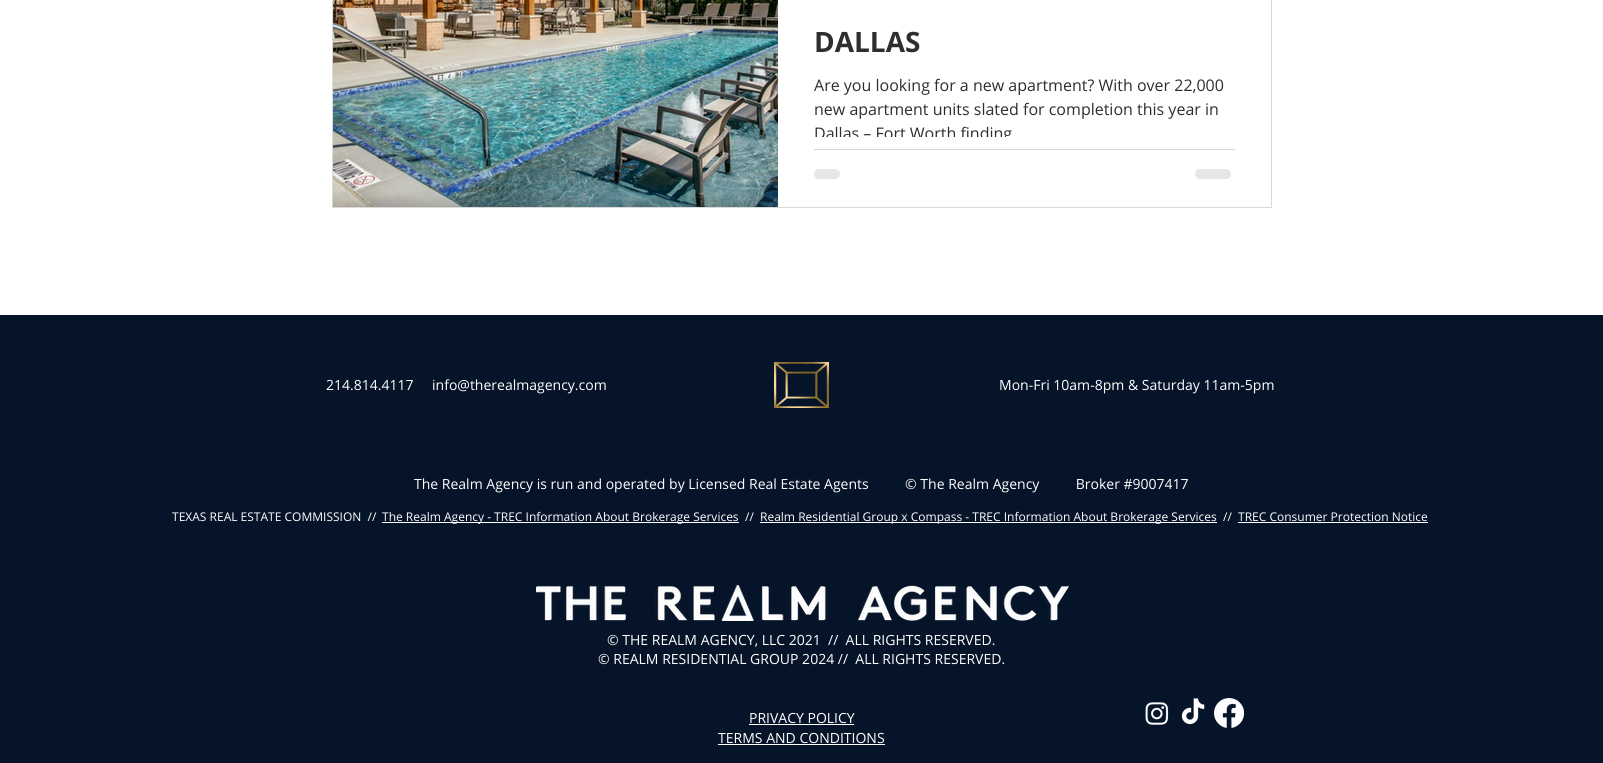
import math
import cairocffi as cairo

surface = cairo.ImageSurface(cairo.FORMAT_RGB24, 1603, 763)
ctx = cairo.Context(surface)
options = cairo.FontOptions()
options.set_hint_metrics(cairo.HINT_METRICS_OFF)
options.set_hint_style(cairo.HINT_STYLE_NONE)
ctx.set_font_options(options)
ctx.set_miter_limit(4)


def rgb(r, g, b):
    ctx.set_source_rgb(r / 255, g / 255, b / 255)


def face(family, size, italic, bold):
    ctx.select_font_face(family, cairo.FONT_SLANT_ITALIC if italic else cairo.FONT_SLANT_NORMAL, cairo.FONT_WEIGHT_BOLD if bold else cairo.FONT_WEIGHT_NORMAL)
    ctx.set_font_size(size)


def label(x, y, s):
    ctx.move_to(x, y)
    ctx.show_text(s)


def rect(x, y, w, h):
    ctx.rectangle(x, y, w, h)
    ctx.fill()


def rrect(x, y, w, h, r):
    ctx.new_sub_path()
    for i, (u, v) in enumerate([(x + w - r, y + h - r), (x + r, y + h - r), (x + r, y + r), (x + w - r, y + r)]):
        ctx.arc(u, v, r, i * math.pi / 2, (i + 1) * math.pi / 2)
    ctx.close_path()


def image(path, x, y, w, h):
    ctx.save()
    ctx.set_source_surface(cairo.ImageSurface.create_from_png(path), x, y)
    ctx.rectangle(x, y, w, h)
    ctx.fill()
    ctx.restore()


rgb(255, 255, 255)
ctx.paint()
ctx.rectangle(332.5, -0.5, 939, 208)
rgb(217, 217, 217)
ctx.set_line_width(1)
ctx.stroke()
image('image0.png', 333, 0, 445, 207)
face('Open Sans', 28, 0, 1)
rgb(47, 46, 46)
label(814, 52, 'DALLAS')
face('Open Sans', 16, 0, 0)
label(814, 91, 'Are you looking for a new apartment? With over 22,000')
label(814, 115, 'new apartment units slated for completion this year in')
ctx.save()
ctx.rectangle(814, 73, 421, 64)
ctx.clip()
label(814, 139, 'Dallas – Fort Worth finding')
ctx.restore()
rgb(213, 213, 213)
rect(814, 149, 421, 1)
rgb(230, 230, 230)
rrect(814, 169, 26, 10, 5)
ctx.fill()
rrect(1195, 169, 36, 10, 5)
ctx.fill()
rgb(5, 20, 40)
rect(0, 315, 1603, 448)
face('Open Sans', 14, 0, 0)
rgb(255, 255, 255)
label(326, 390, '214.814.4117')
label(432, 390, 'info@therealmagency.com')
image('image1.png', 774, 362, 55, 46)
label(999, 390, 'Mon-Fri 10am-8pm & Saturday 11am-5pm')
label(414, 489, 'The Realm Agency is run and operated by Licensed Real Estate Agents          © The Realm Agency          Broker #9007417')
face('Open Sans', 12, 0, 0)
label(172, 521, 'TEXAS REAL ESTATE COMMISSION  //')
rect(382, 522, 357, 1)
label(382, 521, 'The Realm Agency - TREC Information About Brokerage Services')
label(745, 521, '//')
rect(760, 522, 457, 1)
label(760, 521, 'Realm Residential Group x Compass - TREC Information About Brokerage Services')
label(1223, 521, '//')
label(1238, 521, 'TREC Consumer Protection Notice')
rect(1238, 522, 190, 1)
image('image2.png', 536, 585, 533, 36)
face('Open Sans', 14, 0, 0)
label(607, 645, '© THE REALM AGENCY, LLC 2021  //  ALL RIGHTS RESERVED.')
label(598, 664, '© REALM RESIDENTIAL GROUP 2024 //  ALL RIGHTS RESERVED.')
label(749, 723, 'PRIVACY POLICY')
rect(749, 724, 105, 1)
label(718, 743, 'TERMS AND CONDITIONS')
rect(718, 744, 167, 1)
image('image3.png', 1145, 702, 24, 23)
image('image4.png', 1181, 698, 24, 27)
image('image5.png', 1214, 698, 30, 30)
surface.write_to_png('render.png')
